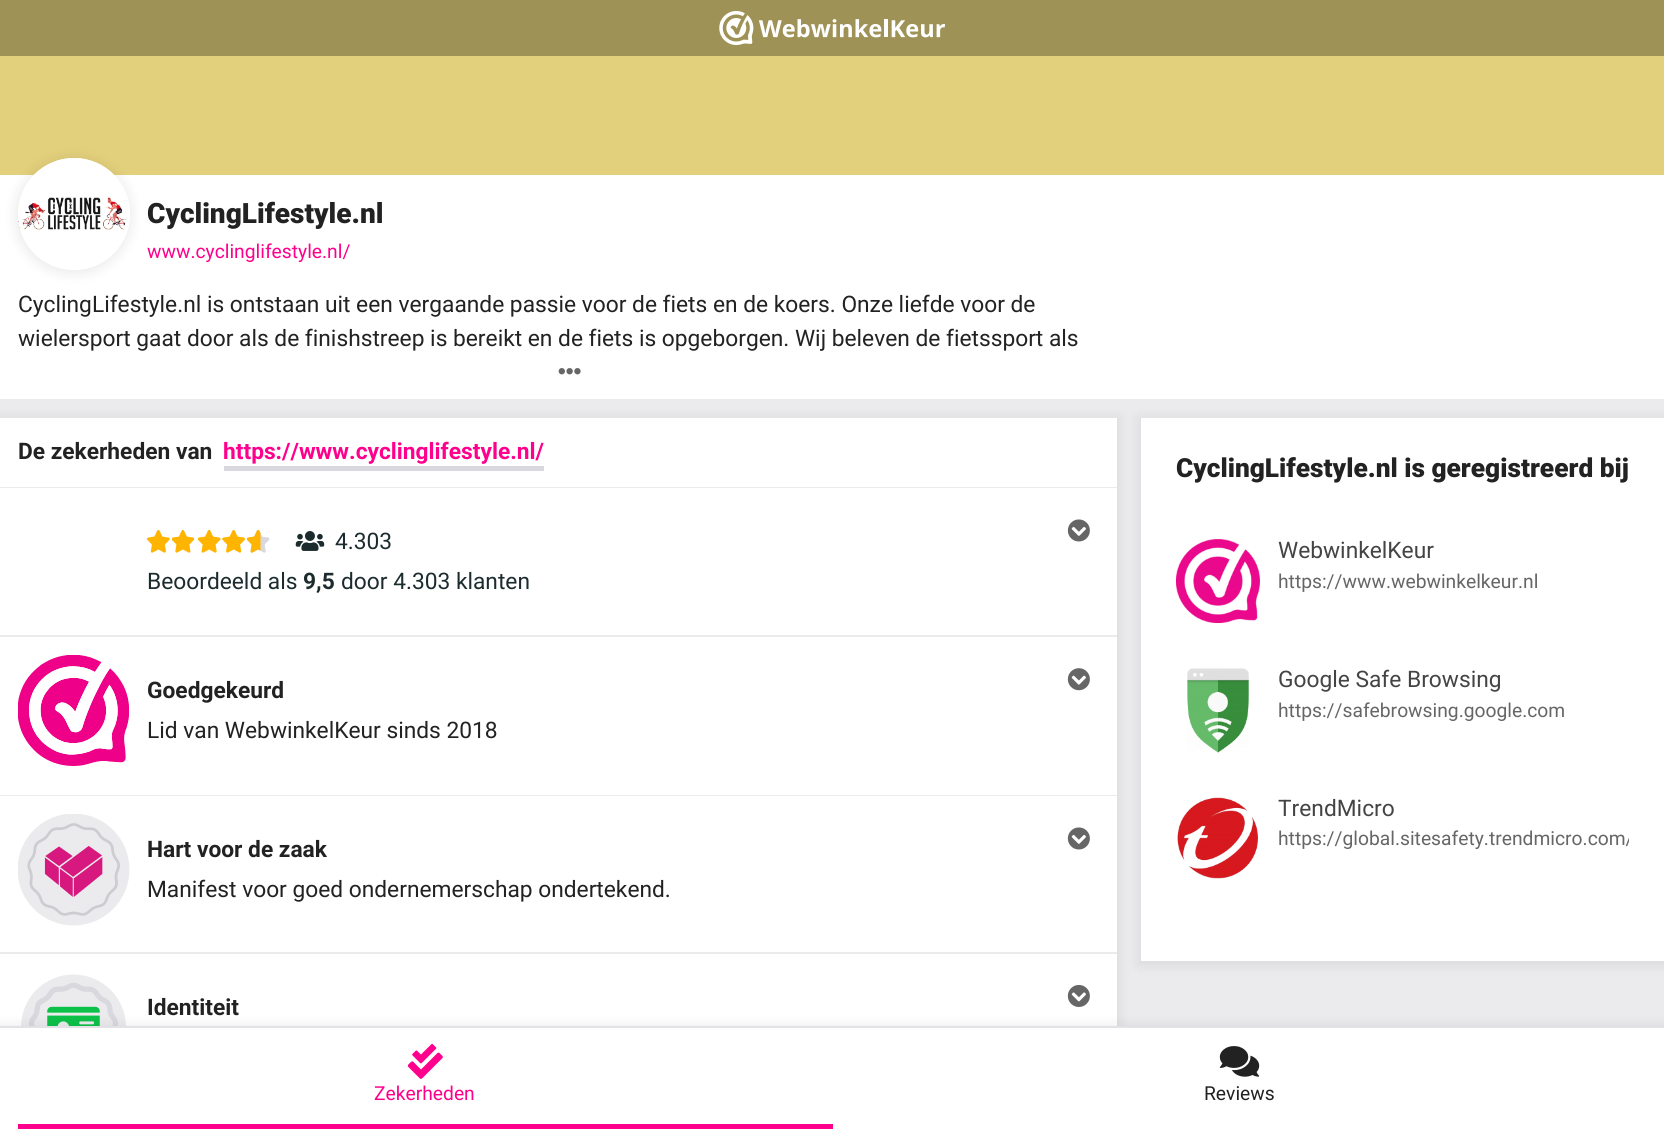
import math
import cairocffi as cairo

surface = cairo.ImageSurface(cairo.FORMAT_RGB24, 1664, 1129)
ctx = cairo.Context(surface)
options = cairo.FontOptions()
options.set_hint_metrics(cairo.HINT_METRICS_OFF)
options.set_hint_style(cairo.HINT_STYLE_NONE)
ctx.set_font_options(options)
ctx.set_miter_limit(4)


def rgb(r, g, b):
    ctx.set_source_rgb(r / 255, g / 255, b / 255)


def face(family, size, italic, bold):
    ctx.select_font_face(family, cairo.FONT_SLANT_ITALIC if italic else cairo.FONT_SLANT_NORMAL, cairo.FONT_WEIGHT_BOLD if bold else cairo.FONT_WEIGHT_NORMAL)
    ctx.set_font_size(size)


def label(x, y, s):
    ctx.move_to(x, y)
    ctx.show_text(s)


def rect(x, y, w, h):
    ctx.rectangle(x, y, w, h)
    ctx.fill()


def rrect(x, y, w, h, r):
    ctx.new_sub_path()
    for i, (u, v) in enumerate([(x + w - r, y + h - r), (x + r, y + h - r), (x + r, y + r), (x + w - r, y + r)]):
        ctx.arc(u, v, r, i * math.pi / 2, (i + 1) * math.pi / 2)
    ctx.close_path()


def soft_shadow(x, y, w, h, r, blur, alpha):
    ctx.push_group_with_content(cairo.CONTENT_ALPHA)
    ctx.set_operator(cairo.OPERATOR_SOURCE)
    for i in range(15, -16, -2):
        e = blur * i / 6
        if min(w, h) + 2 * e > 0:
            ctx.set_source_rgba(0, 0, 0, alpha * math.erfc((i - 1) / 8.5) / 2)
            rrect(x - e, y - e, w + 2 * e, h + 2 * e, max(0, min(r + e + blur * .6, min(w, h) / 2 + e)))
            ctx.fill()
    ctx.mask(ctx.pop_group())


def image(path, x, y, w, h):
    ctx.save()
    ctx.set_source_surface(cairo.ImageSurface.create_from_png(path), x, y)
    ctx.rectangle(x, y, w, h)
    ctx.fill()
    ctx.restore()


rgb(227, 208, 124)
ctx.paint()
rgb(159, 146, 87)
rect(0, 0, 1664, 56)
image('image0.png', 719, 10, 226, 36)
rgb(235, 235, 237)
rect(0, 401, 1664, 625)
rgb(0, 0, 0)
soft_shadow(-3, 417, 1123, 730, 0, 6, 0.07)
soft_shadow(1138, 417, 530, 549, 0, 6, 0.07)
rgb(255, 255, 255)
rect(0, 175, 1664, 224)
rgb(235, 235, 237)
rect(0, 399, 1664, 2)
rgb(0, 0, 0)
soft_shadow(14, 156, 119, 119, 59.5, 6, 0.07)
rgb(255, 255, 255)
ctx.arc(74, 214, 56, 0, 2 * math.pi)
ctx.fill()
image('image1.png', 18, 197, 110, 33)
ctx.arc(74, 214, 54, 0, 2 * math.pi)
ctx.set_line_width(4)
ctx.stroke()
face('Roboto Black', 28, 0, 0)
rgb(34, 34, 34)
label(147, 223, 'CyclingLifestyle.nl')
face('Roboto', 19.25, 0, 0)
rgb(254, 0, 140)
label(147, 258, 'www.cyclinglifestyle.nl/')
face('Roboto', 22.75, 0, 0)
rgb(34, 34, 34)
label(18, 312, 'CyclingLifestyle.nl is ontstaan uit een vergaande passie voor de fiets en de koers. Onze liefde voor de')
label(18, 346, 'wielersport gaat door als de finishstreep is bereikt en de fiets is opgeborgen. Wij beleven de fietssport als')
image('image2.png', 558, 368, 23, 7)
rgb(255, 255, 255)
rect(0, 418, 1117, 69)
face('Roboto', 22.75, 0, 1)
rgb(34, 34, 34)
label(18, 459, 'De zekerheden van')
rgb(254, 0, 140)
label(223, 459, 'https://www.cyclinglifestyle.nl/')
rgb(216, 216, 222)
rect(224, 466, 320, 5)
rgb(235, 235, 237)
rect(0, 487, 1117, 1)
rgb(255, 255, 255)
rect(0, 488, 1117, 147)
image('image3.png', 147, 530, 23, 23)
image('image4.png', 172, 530, 22, 23)
image('image5.png', 198, 530, 23, 23)
image('image6.png', 222, 530, 23, 23)
image('image7.png', 247, 530, 23, 23)
image('image8.png', 247, 530, 14, 23)
image('image9.png', 295, 531, 30, 20)
face('Roboto', 22.75, 0, 0)
rgb(28, 44, 46)
label(335, 549, '4.303')
label(147, 589, 'Beoordeeld als')
face('Roboto', 22.75, 0, 1)
label(303, 589, '9,5')
face('Roboto', 22.75, 0, 0)
label(341, 589, 'door 4.303 klanten')
image('image10.png', 1067, 519, 23, 23)
rgb(235, 235, 237)
rect(0, 635, 1117, 2)
rgb(255, 255, 255)
rect(0, 637, 1117, 158)
image('image11.png', 18, 655, 112, 111)
face('Roboto', 22.75, 0, 1)
rgb(34, 34, 34)
label(147, 698, 'Goedgekeurd')
face('Roboto', 22.75, 0, 0)
label(147, 738, 'Lid van WebwinkelKeur sinds 2018')
image('image12.png', 1067, 668, 23, 23)
rgb(235, 235, 237)
rect(0, 795, 1117, 1)
rgb(255, 255, 255)
rect(0, 796, 1117, 156)
image('image13.png', 18, 814, 112, 112)
face('Roboto', 22.75, 0, 1)
rgb(34, 34, 34)
label(147, 857, 'Hart voor de zaak')
face('Roboto', 22.75, 0, 0)
label(147, 897, 'Manifest voor goed ondernemerschap ondertekend.')
image('image10.png', 1067, 827, 23, 23)
rgb(235, 235, 237)
rect(0, 952, 1117, 2)
rgb(255, 255, 255)
rect(0, 954, 1117, 72)
image('image14.png', 21, 974, 105, 52)
face('Roboto', 22.75, 0, 1)
rgb(34, 34, 34)
label(147, 1015, 'Identiteit')
image('image15.png', 1067, 985, 23, 22)
rgb(255, 255, 255)
rect(1141, 418, 523, 543)
face('Roboto Black', 26.25, 0, 0)
rgb(34, 34, 34)
label(1176, 477, 'CyclingLifestyle.nl is geregistreerd bij')
image('image16.png', 1176, 539, 84, 84)
face('Roboto', 22.75, 0, 0)
rgb(68, 68, 68)
label(1278, 558, 'WebwinkelKeur')
face('Roboto', 19.25, 0, 0)
rgb(102, 102, 102)
label(1278, 588, 'https://www.webwinkelkeur.nl')
image('image17.png', 1187, 668, 62, 85)
face('Roboto', 22.75, 0, 0)
rgb(68, 68, 68)
label(1278, 687, 'Google Safe Browsing')
face('Roboto', 19.25, 0, 0)
rgb(102, 102, 102)
label(1278, 717, 'https://safebrowsing.google.com')
image('image18.png', 1177, 797, 81, 82)
face('Roboto', 22.75, 0, 0)
rgb(68, 68, 68)
label(1278, 816, 'TrendMicro')
ctx.save()
ctx.rectangle(1176, 504, 453, 422)
ctx.clip()
face('Roboto', 19.25, 0, 0)
rgb(102, 102, 102)
label(1278, 845, 'https://global.sitesafety.trendmicro.com/')
ctx.restore()
rgb(0, 0, 0)
soft_shadow(-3, 1024, 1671, 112, 0, 6, 0.07)
rgb(255, 255, 255)
rect(0, 1028, 1664, 101)
rgb(226, 226, 230)
rect(0, 1026, 1664, 2)
rgb(254, 0, 140)
rect(18, 1124, 815, 5)
image('image19.png', 407, 1043, 36, 36)
face('Roboto', 19.25, 0, 0)
label(374, 1100, 'Zekerheden')
image('image20.png', 1219, 1046, 41, 31)
rgb(34, 34, 34)
label(1204, 1100, 'Reviews')
surface.write_to_png('render.png')
